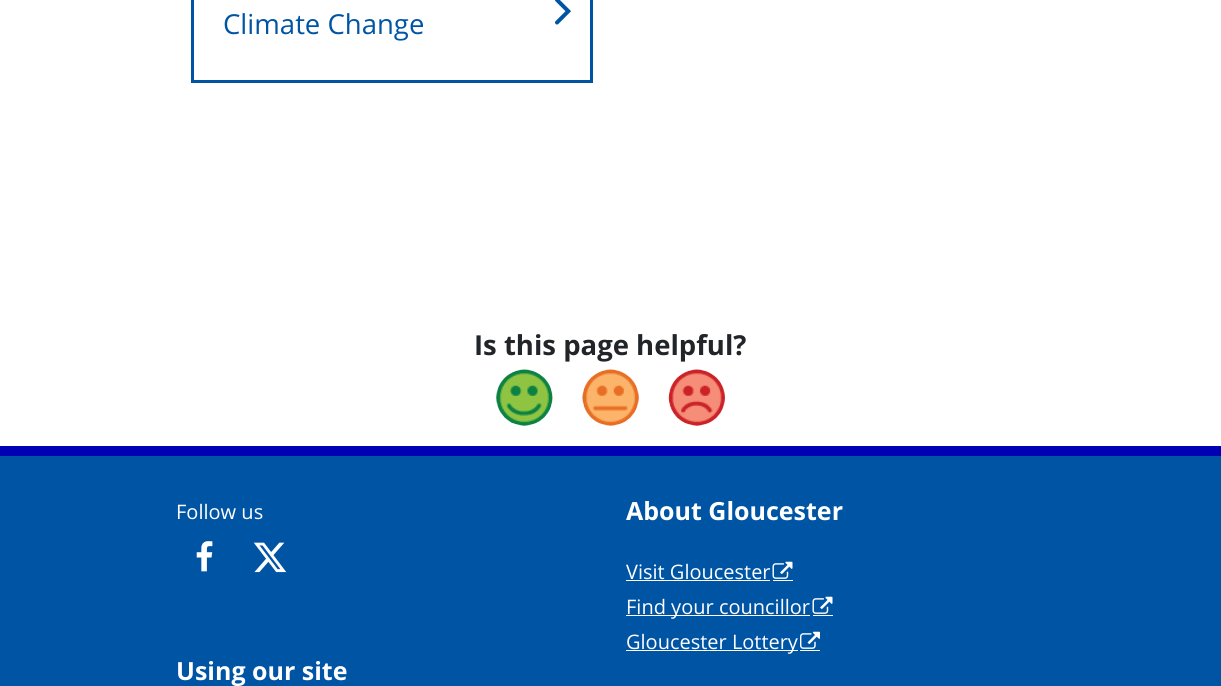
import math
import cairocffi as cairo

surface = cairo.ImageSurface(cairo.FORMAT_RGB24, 1221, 686)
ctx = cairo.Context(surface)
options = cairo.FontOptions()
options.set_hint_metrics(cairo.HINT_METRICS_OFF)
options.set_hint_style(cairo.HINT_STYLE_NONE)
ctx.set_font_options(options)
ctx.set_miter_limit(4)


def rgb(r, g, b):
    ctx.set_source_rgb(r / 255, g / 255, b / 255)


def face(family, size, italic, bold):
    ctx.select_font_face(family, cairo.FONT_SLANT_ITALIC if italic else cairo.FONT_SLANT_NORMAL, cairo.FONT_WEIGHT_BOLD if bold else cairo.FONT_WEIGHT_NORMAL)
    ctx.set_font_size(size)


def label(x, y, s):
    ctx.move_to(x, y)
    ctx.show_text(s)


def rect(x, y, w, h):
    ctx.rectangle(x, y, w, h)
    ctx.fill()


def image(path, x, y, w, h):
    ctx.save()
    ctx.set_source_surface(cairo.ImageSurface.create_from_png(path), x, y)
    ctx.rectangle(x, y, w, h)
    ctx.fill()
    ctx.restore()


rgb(255, 255, 255)
ctx.paint()
ctx.rectangle(192.5, -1.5, 399, 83)
rgb(0, 84, 164)
ctx.set_line_width(3)
ctx.stroke()
face('Open Sans', 27.5, 0, 0)
label(223, 34, 'Climate Change')
image('image0.png', 555, 0, 16, 25)
face('Open Sans', 27.5, 0, 1)
rgb(33, 37, 41)
label(474, 355, 'Is this page helpful?')
image('image1.png', 496, 369, 57, 57)
image('image2.png', 582, 369, 57, 57)
image('image3.png', 668, 369, 57, 57)
rgb(0, 84, 164)
rect(0, 456, 1221, 230)
rgb(0, 0, 180)
rect(0, 446, 1221, 10)
face('Open Sans', 20, 0, 0)
rgb(255, 255, 255)
label(176, 519, 'Follow us')
image('image4.png', 196, 541, 17, 31)
image('image5.png', 253, 542, 34, 31)
face('Open Sans', 25, 0, 1)
label(626, 520, 'About Gloucester')
face('Open Sans', 20, 0, 0)
label(626, 579, 'Visit Gloucester')
rect(626, 580, 144, 1)
rect(773, 580, 20, 1)
image('image6.png', 772, 561, 21, 18)
rect(626, 615, 184, 1)
label(626, 614, 'Find your councillor')
rect(813, 615, 20, 1)
image('image6.png', 812, 596, 21, 18)
rect(626, 650, 172, 1)
label(626, 649, 'Gloucester Lottery')
rect(800, 650, 20, 1)
image('image7.png', 800, 631, 20, 18)
face('Open Sans', 25, 0, 1)
label(176, 680, 'Using our site')
surface.write_to_png('render.png')
